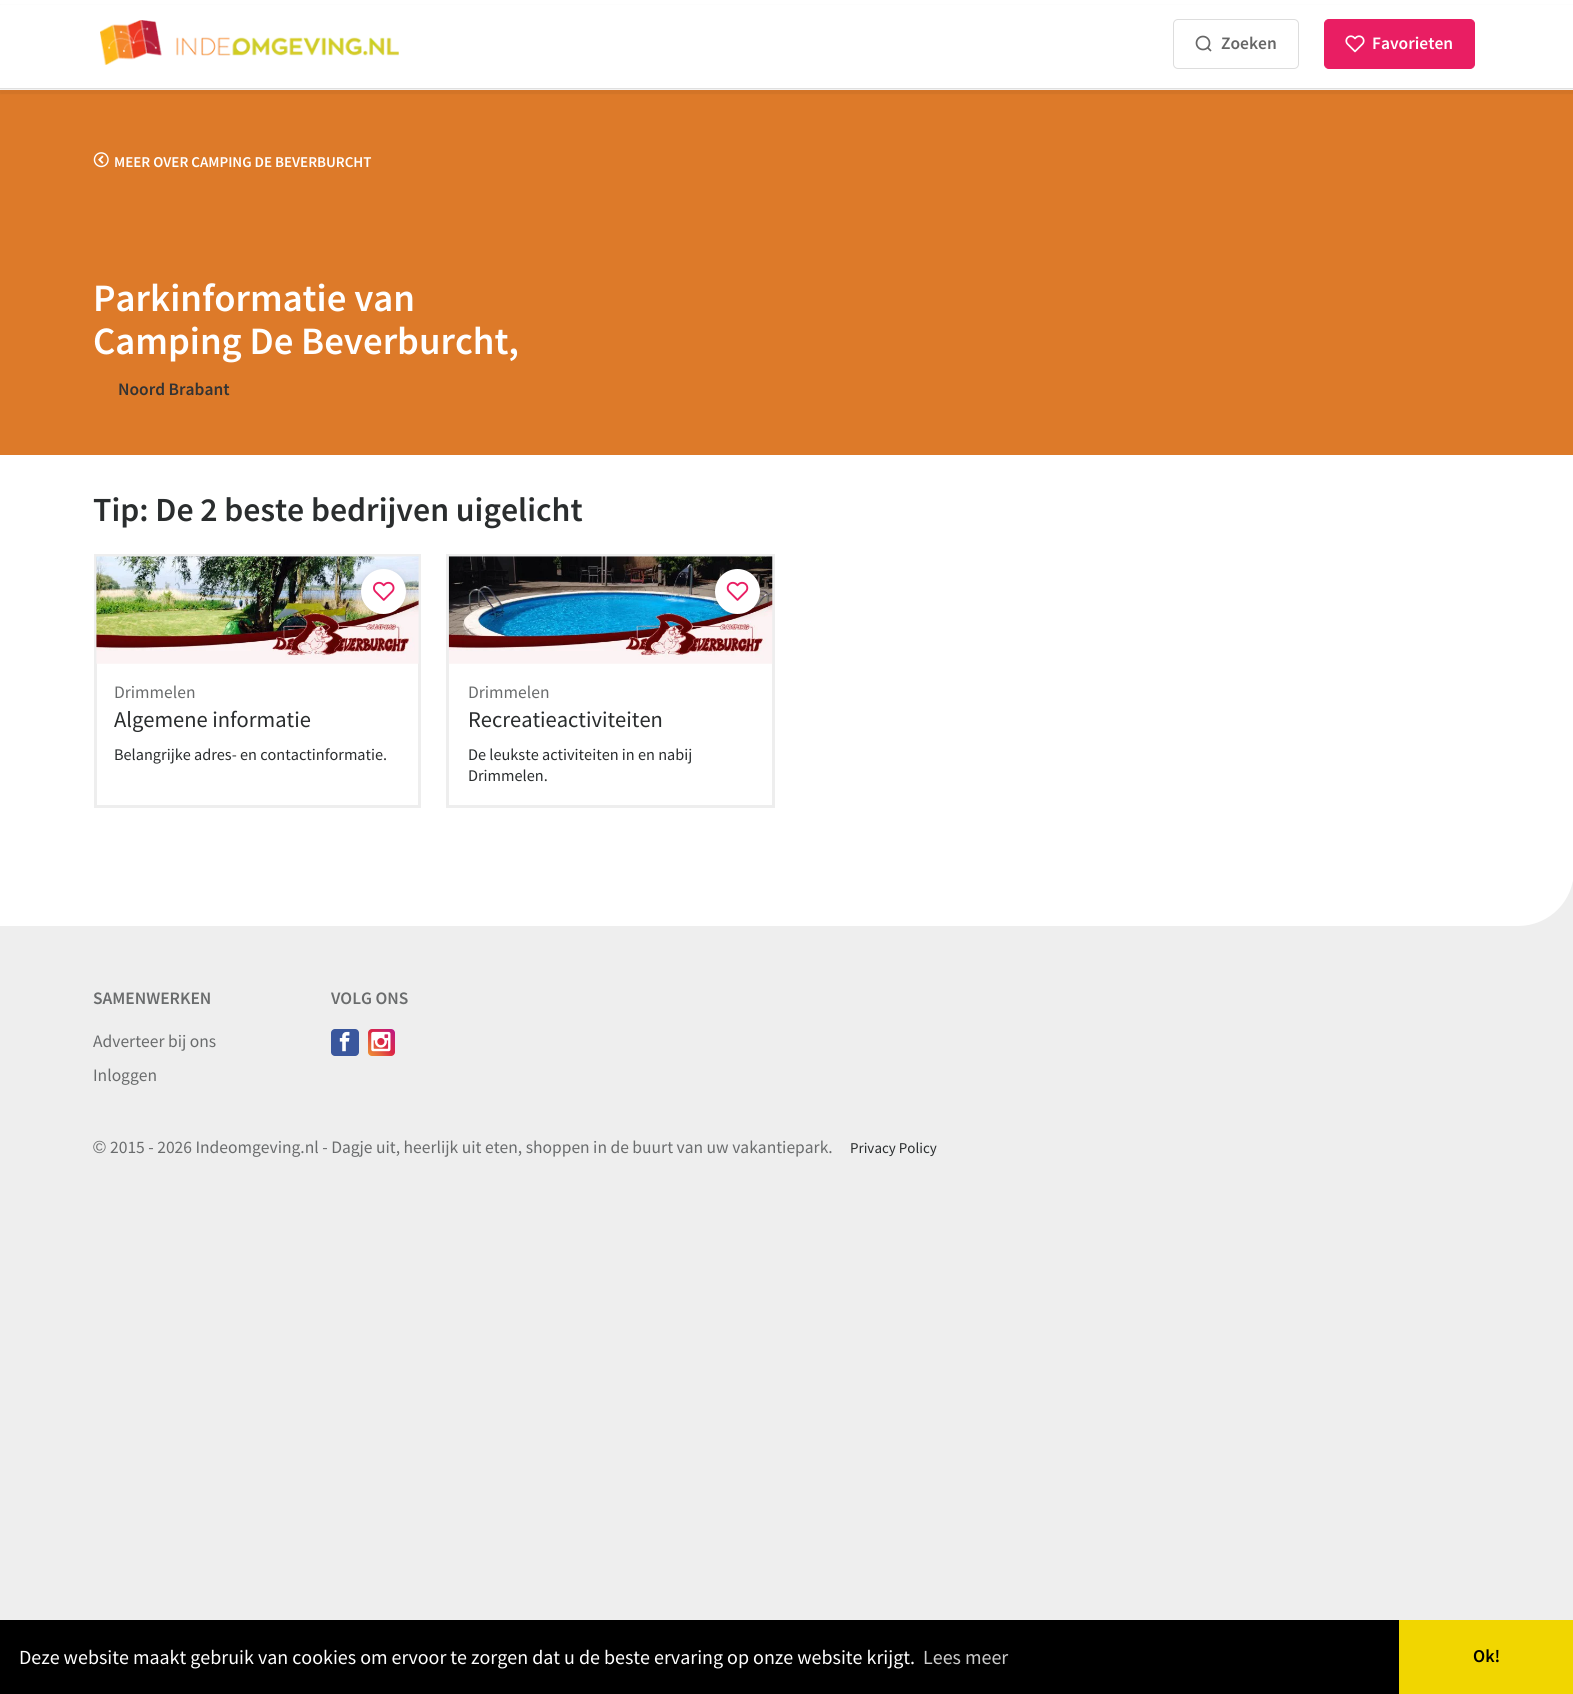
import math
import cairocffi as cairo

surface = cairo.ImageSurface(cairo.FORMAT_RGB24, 1573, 1694)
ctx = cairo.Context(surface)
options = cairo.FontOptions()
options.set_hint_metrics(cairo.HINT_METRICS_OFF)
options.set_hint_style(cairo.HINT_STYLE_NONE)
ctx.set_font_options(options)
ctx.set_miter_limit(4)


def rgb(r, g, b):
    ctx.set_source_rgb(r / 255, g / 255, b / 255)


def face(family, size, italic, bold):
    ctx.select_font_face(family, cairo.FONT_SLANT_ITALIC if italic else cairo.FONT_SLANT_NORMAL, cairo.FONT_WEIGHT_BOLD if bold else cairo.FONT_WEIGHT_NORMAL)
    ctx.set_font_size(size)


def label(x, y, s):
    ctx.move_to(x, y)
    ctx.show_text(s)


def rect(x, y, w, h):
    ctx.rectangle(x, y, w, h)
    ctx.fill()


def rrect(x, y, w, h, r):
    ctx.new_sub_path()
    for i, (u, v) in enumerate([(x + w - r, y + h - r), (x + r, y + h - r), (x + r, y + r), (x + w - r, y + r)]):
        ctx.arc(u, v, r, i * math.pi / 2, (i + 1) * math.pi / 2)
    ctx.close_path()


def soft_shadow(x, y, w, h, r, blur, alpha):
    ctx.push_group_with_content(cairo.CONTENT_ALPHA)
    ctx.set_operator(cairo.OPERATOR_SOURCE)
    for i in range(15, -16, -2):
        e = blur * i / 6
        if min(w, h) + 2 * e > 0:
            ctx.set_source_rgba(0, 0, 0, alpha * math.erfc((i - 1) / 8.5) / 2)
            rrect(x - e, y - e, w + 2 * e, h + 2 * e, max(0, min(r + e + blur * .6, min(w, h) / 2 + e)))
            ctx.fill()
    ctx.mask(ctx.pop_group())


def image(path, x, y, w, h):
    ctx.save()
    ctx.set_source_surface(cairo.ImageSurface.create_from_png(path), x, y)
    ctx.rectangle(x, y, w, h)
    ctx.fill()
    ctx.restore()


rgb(238, 238, 238)
ctx.paint()
rgb(255, 255, 255)
ctx.new_path()
ctx.move_to(0, 0)
ctx.line_to(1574, 0)
ctx.line_to(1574, 870)
ctx.curve_to(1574, 901, 1549, 926, 1518, 926)
ctx.line_to(0, 926)
ctx.close_path()
ctx.fill()
rgb(221, 122, 41)
rect(0, 90, 1573, 365)
rgb(0, 0, 0)
soft_shadow(0, 5, 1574, 89, 0, 0.5, 0.05)
rgb(255, 255, 255)
rect(0, 5, 1573, 83)
rgb(224, 224, 224)
rect(0, 88, 1573, 1)
image('image0.png', 100, 20, 299, 45)
rrect(1173.5, 19.5, 125, 49, 4.5)
rgb(221, 221, 221)
ctx.set_line_width(1)
ctx.stroke()
ctx.arc(1203, 43, 6.5, 0, 2 * math.pi)
rgb(102, 102, 102)
ctx.set_line_width(1.7)
ctx.stroke()
ctx.new_path()
ctx.move_to(1211, 51)
ctx.line_to(1207.5, 47.5)
ctx.stroke()
face('Source Sans Pro SemiBold', 17.5, 0, 0)
label(1221, 49, 'Zoeken')
rgb(233, 30, 99)
rrect(1324.5, 19.5, 150, 49, 4.5)
ctx.fill_preserve()
ctx.set_line_width(1)
ctx.stroke()
image('image1.png', 1345, 35, 20, 18)
rgb(255, 255, 255)
label(1372, 49, 'Favorieten')
image('image2.png', 93, 152, 16, 16)
face('Source Sans Pro SemiBold', 15, 0, 0)
label(114, 167, 'MEER OVER CAMPING DE BEVERBURCHT')
face('Source Sans Pro SemiBold', 38.75, 0, 0)
label(93, 311, 'Parkinformatie van')
label(93, 354, 'Camping De Beverburcht,')
face('Source Sans Pro SemiBold', 17.5, 0, 0)
rgb(51, 51, 51)
label(118, 395, 'Noord Brabant')
face('Source Sans Pro SemiBold', 33.75, 0, 0)
rgb(42, 45, 46)
label(93, 521, 'Tip: De 2 beste bedrijven uigelicht')
ctx.rectangle(95.5, 555.5, 324, 251)
rgb(238, 238, 238)
ctx.set_line_width(3)
ctx.stroke()
image('image4.png', 96, 556, 323, 108)
rgb(0, 0, 0)
soft_shadow(361, 570, 45, 45, 22.5, 2, 0.08)
soft_shadow(361, 571, 45, 45, 22.5, 5, 0.1)
rgb(255, 255, 255)
ctx.arc(383.5, 591.5, 22.5, 0, 2 * math.pi)
ctx.fill()
image('image3.png', 373, 581, 22, 20)
face('Source Sans Pro', 17.5, 0, 0)
rgb(106, 108, 109)
label(114, 698, 'Drimmelen')
face('Source Sans Pro', 22.5, 0, 0)
rgb(42, 45, 46)
label(114, 727, 'Algemene informatie')
face('Source Sans Pro', 16.25, 0, 0)
label(114, 760, 'Belangrijke adres- en contactinformatie.')
ctx.rectangle(447.5, 555.5, 326, 251)
rgb(238, 238, 238)
ctx.stroke()
image('image6.png', 448, 556, 325, 108)
rgb(0, 0, 0)
soft_shadow(715, 570, 45, 45, 22.5, 2, 0.08)
soft_shadow(715, 571, 45, 45, 22.5, 5, 0.1)
rgb(255, 255, 255)
ctx.arc(737.5, 591.5, 22.5, 0, 2 * math.pi)
ctx.fill()
image('image5.png', 726, 581, 23, 20)
face('Source Sans Pro', 17.5, 0, 0)
rgb(106, 108, 109)
label(468, 698, 'Drimmelen')
face('Source Sans Pro', 22.5, 0, 0)
rgb(42, 45, 46)
label(468, 727, 'Recreatieactiviteiten')
face('Source Sans Pro', 16.25, 0, 0)
label(468, 760, 'De leukste activiteiten in en nabij')
label(468, 781, 'Drimmelen.')
face('Source Sans Pro SemiBold', 17.5, 0, 0)
rgb(106, 108, 109)
label(93, 1004, 'SAMENWERKEN')
face('Source Sans Pro', 17.5, 0, 0)
label(93, 1047, 'Adverteer bij ons')
label(93, 1081, 'Inloggen')
face('Source Sans Pro SemiBold', 17.5, 0, 0)
label(331, 1004, 'VOLG ONS')
rgb(58, 87, 157)
rrect(331, 1029, 28, 27, 4)
ctx.fill()
image('image7.png', 339, 1031, 11, 21)
gradient = cairo.LinearGradient(368, 1056, 395, 1029)
gradient.add_color_stop_rgba(0, 0.941, 0.58, 0.2, 1)
gradient.add_color_stop_rgba(0.25, 0.902, 0.408, 0.235, 1)
gradient.add_color_stop_rgba(0.5, 0.863, 0.153, 0.263, 1)
gradient.add_color_stop_rgba(0.75, 0.8, 0.137, 0.4, 1)
gradient.add_color_stop_rgba(1, 0.737, 0.094, 0.533, 1)
ctx.set_source(gradient)
rrect(368, 1029, 27, 27, 4)
ctx.fill()
image('image8.png', 371, 1031, 20, 21)
face('Liberation Sans', 17.5, 0, 0)
rgb(106, 108, 109)
label(93, 1153, '©')
face('Source Sans Pro', 17.5, 0, 0)
label(110, 1153, '2015 - 2026 Indeomgeving.nl - Dagje uit, heerlijk uit eten, shoppen in de buurt van uw vakantiepark.')
face('Source Sans Pro', 15, 0, 0)
rgb(42, 45, 46)
label(850, 1153, 'Privacy Policy')
rgb(0, 0, 0)
rect(0, 1620, 1399, 74)
face('Source Sans Pro', 20, 0, 0)
rgb(255, 255, 255)
label(19, 1664, 'Deze website maakt gebruik van cookies om ervoor te zorgen dat u de beste ervaring op onze website krijgt.')
rgb(204, 204, 204)
label(923, 1664, 'Lees meer')
rgb(241, 214, 0)
rect(1399, 1620, 174, 74)
face('Source Sans Pro SemiBold', 18, 0, 0)
rgb(0, 0, 0)
label(1473, 1662, 'Ok!')
surface.write_to_png('render.png')
